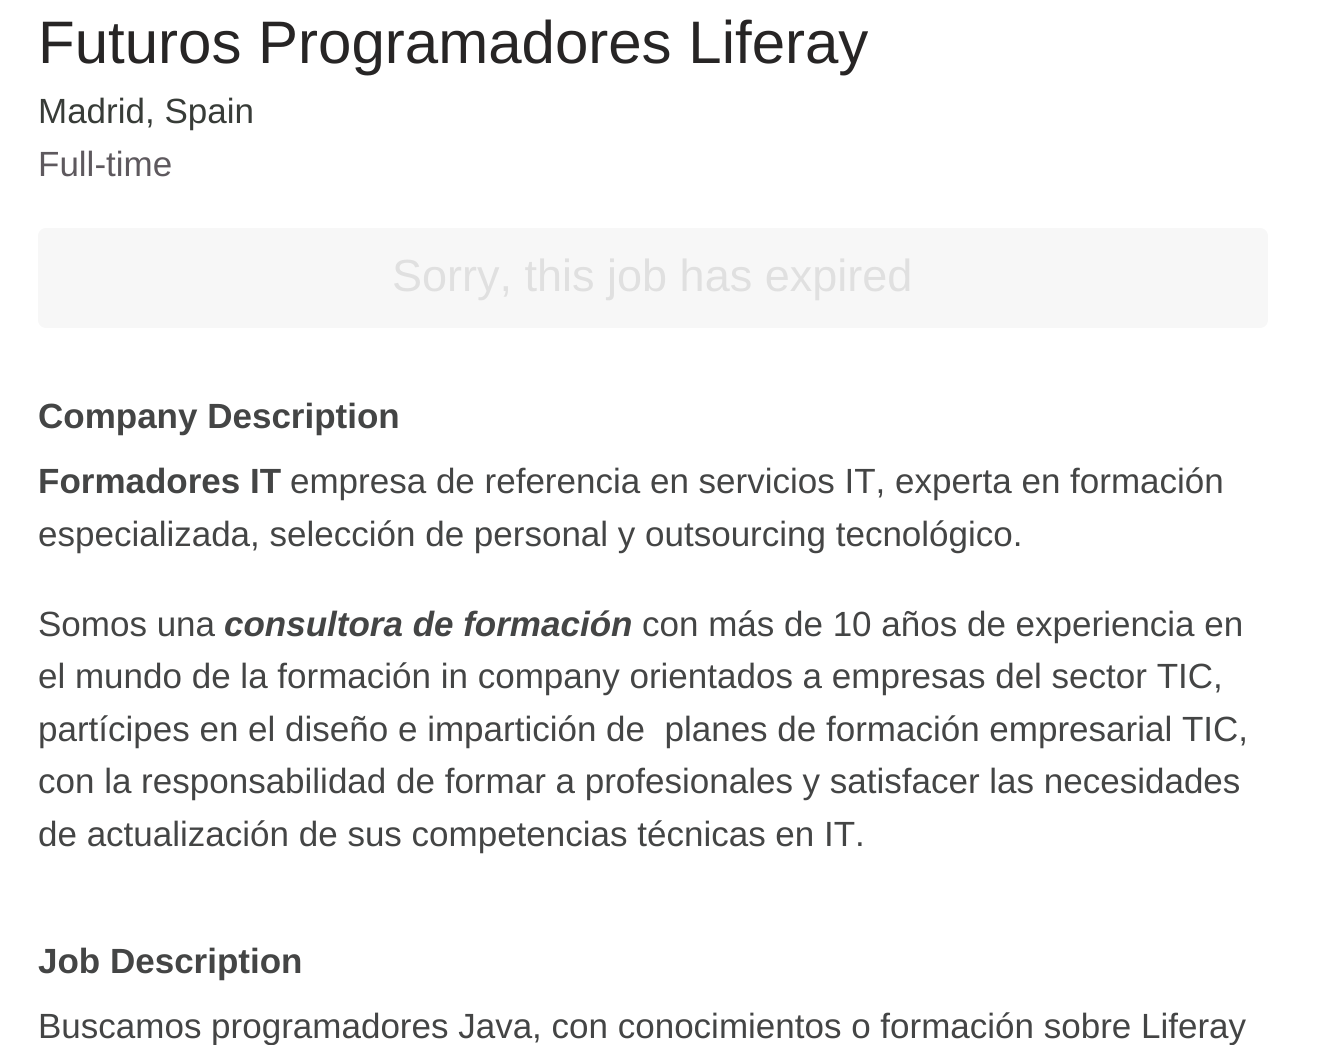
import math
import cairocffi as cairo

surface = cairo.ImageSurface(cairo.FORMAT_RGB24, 1330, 1045)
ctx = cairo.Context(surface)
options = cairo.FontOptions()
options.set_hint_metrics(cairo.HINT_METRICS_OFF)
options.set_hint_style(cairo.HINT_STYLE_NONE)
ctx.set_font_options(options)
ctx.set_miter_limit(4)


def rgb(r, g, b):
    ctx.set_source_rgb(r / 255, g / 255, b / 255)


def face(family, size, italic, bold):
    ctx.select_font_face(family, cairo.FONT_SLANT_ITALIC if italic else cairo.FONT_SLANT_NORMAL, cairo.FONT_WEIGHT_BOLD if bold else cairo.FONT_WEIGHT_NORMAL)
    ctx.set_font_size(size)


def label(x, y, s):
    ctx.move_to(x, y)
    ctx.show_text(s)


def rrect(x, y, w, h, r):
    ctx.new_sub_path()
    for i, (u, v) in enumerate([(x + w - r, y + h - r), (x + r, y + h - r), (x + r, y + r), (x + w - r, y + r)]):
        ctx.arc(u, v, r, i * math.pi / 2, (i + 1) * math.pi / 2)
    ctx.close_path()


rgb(255, 255, 255)
ctx.paint()
face('Liberation Sans', 60, 0, 0)
rgb(39, 37, 37)
label(38, 63, 'Futuros Programadores Liferay')
face('Liberation Sans', 35, 0, 0)
rgb(56, 60, 56)
label(38, 123, 'Madrid, Spain')
rgb(94, 89, 94)
label(38, 176, 'Full-time')
rgb(247, 247, 247)
rrect(38, 228, 1230, 100, 8)
ctx.fill()
face('Liberation Sans', 45, 0, 0)
rgb(224, 224, 224)
label(392, 291, 'Sorry, this job has expired')
face('Liberation Sans', 35, 0, 1)
rgb(68, 69, 69)
label(38, 428, 'Company Description')
label(38, 493, 'Formadores IT')
face('Liberation Sans', 35, 0, 0)
label(290, 493, 'empresa de referencia en servicios IT, experta en formación')
label(38, 546, 'especializada, selección de personal y outsourcing tecnológico.')
label(38, 636, 'Somos una')
face('Liberation Sans', 35, 1, 1)
label(224, 636, 'consultora de formación')
face('Liberation Sans', 35, 0, 0)
label(642, 636, 'con más de 10 años de experiencia en')
label(38, 688, 'el mundo de la formación in company orientados a empresas del sector TIC,')
label(38, 741, 'partícipes en el diseño e impartición de  planes de formación empresarial TIC,')
label(38, 793, 'con la responsabilidad de formar a profesionales y satisfacer las necesidades')
label(38, 846, 'de actualización de sus competencias técnicas en IT.')
face('Liberation Sans', 35, 0, 1)
label(38, 973, 'Job Description')
face('Liberation Sans', 35, 0, 0)
label(38, 1038, 'Buscamos programadores Java, con conocimientos o formación sobre Liferay')
surface.write_to_png('render.png')
